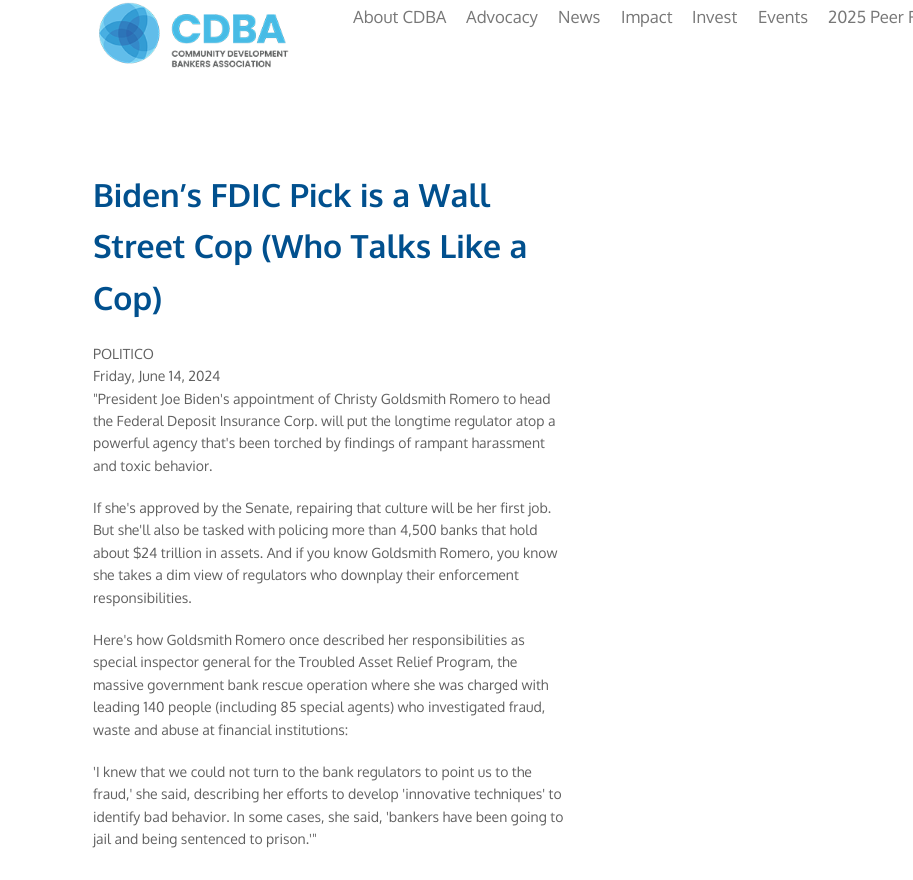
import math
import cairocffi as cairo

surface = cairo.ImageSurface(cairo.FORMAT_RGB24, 913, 880)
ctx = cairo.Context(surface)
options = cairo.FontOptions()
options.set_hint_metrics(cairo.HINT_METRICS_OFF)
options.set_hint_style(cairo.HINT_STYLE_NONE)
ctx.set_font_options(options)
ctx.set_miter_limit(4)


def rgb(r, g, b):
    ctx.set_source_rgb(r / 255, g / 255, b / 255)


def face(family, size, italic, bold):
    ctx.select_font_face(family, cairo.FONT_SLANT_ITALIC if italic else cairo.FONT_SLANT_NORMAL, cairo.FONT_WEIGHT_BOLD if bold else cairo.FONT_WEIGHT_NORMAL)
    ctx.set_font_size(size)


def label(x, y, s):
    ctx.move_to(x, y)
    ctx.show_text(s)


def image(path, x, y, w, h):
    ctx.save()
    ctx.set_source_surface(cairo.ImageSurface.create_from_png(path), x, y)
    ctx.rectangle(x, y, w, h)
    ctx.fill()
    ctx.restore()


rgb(255, 255, 255)
ctx.paint()
image('image0.png', 99, 2, 190, 66)
face('Oxygen', 16.75, 0, 0)
rgb(119, 119, 119)
label(353, 23, 'About CDBA')
label(466, 23, 'Advocacy')
label(558, 23, 'News')
label(621, 23, 'Impact')
label(692, 23, 'Invest')
label(758, 23, 'Events')
label(828, 23, '2025 Peer F')
face('Oxygen', 32, 0, 1)
rgb(1, 80, 142)
label(93, 207, 'Biden’s FDIC Pick is a Wall')
label(93, 258, 'Street Cop (Who Talks Like a')
label(93, 310, 'Cop)')
face('Oxygen', 14, 0, 0)
rgb(96, 96, 96)
label(93, 359, 'POLITICO')
label(93, 381, 'Friday, June 14, 2024')
label(93, 404, '"President Joe Biden\'s appointment of Christy Goldsmith Romero to head')
label(93, 426, 'the Federal Deposit Insurance Corp. will put the longtime regulator atop a')
label(93, 448, 'powerful agency that\'s been torched by findings of rampant harassment')
label(93, 471, 'and toxic behavior.')
label(93, 513, 'If she\'s approved by the Senate, repairing that culture will be her first job.')
label(93, 535, 'But she\'ll also be tasked with policing more than 4,500 banks that hold')
label(93, 558, 'about $24 trillion in assets. And if you know Goldsmith Romero, you know')
label(93, 580, 'she takes a dim view of regulators who downplay their enforcement')
label(93, 603, 'responsibilities.')
label(93, 645, 'Here\'s how Goldsmith Romero once described her responsibilities as')
label(93, 667, 'special inspector general for the Troubled Asset Relief Program, the')
label(93, 690, 'massive government bank rescue operation where she was charged with')
label(93, 712, 'leading 140 people (including 85 special agents) who investigated fraud,')
label(93, 735, 'waste and abuse at financial institutions:')
label(93, 777, '\'I knew that we could not turn to the bank regulators to point us to the')
label(93, 799, 'fraud,\' she said, describing her efforts to develop \'innovative techniques\' to')
label(93, 822, 'identify bad behavior. In some cases, she said, \'bankers have been going to')
label(93, 844, 'jail and being sentenced to prison.\'"')
surface.write_to_png('render.png')
